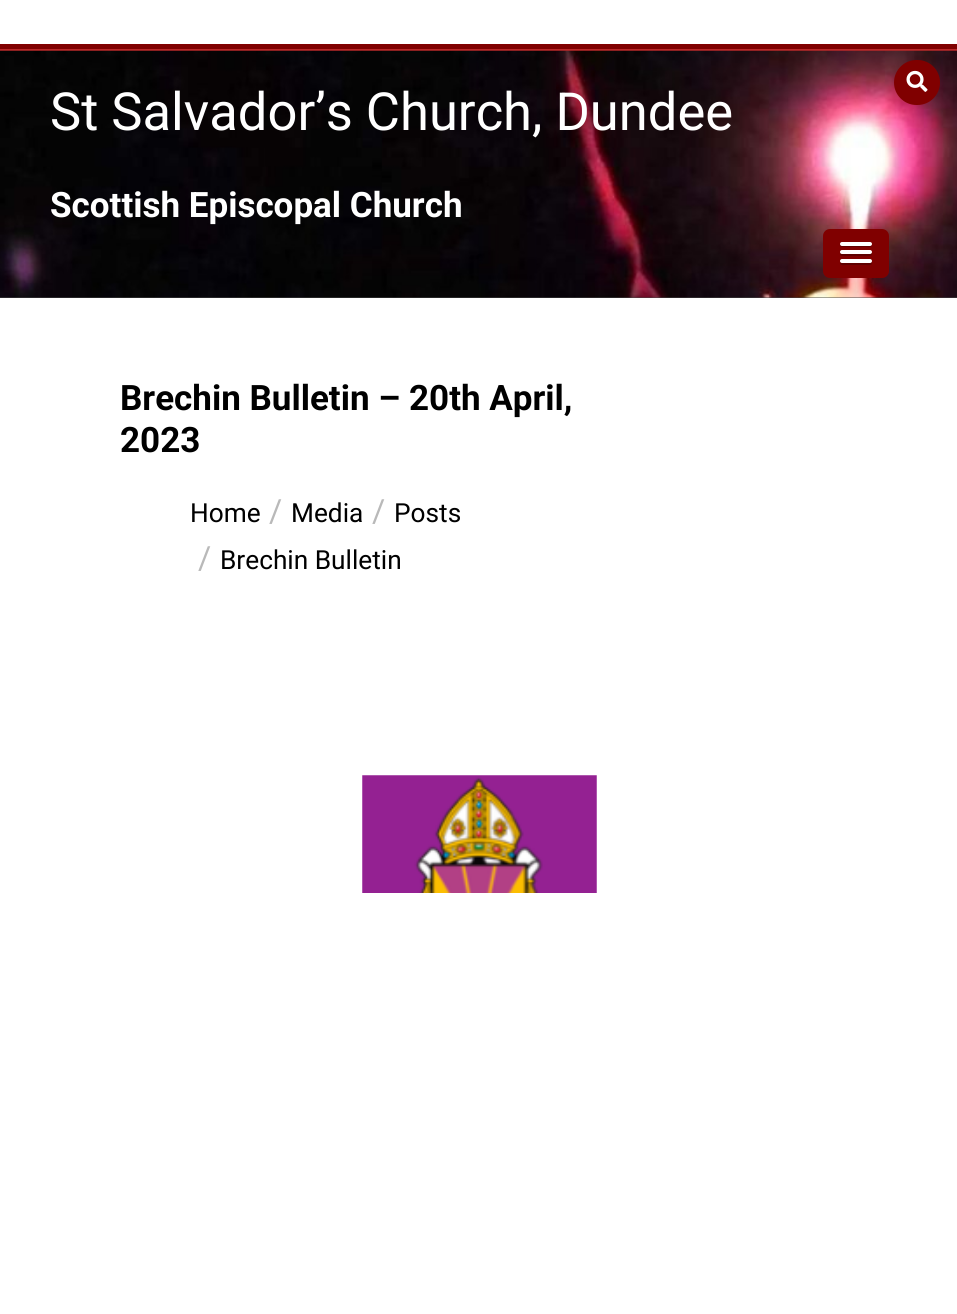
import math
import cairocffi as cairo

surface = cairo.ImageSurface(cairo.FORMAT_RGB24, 957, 1314)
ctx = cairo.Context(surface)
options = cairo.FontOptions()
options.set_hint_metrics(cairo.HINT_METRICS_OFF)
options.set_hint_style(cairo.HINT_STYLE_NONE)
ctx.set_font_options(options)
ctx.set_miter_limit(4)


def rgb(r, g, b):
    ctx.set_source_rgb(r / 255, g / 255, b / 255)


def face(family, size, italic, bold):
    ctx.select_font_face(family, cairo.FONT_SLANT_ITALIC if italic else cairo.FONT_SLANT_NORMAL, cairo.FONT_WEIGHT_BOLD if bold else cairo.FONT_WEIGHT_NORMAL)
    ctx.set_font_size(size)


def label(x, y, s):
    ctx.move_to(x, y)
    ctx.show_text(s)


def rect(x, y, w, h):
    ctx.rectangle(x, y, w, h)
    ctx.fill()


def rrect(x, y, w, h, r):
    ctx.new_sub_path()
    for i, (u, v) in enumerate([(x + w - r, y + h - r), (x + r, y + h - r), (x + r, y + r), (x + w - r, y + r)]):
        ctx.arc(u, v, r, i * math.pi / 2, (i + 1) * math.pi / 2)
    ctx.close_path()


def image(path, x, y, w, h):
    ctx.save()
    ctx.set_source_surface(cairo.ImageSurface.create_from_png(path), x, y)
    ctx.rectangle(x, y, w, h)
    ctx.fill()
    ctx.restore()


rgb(255, 255, 255)
ctx.paint()
rgb(186, 42, 42)
rect(0, 49, 957, 2)
rgb(128, 0, 0)
rect(0, 44, 957, 5)
rgb(73, 73, 73)
rect(0, 297, 957, 1)
image('image1.png', 0, 50, 957, 248)
rgb(128, 0, 0)
rrect(894, 60, 46, 45, 22.5)
ctx.fill()
image('image0.png', 906, 70, 22, 22)
face('Roboto', 52.5, 0, 0)
rgb(255, 255, 255)
label(50, 130, 'St Salvador’s Church, Dundee')
face('Roboto', 35, 0, 1)
label(50, 217, 'Scottish Episcopal Church')
rgb(128, 0, 0)
rrect(823, 229, 66, 49, 7)
ctx.fill()
rgb(96, 0, 0)
ctx.new_path()
ctx.move_to(840, 244)
ctx.curve_to(838.5, 248, 846, 247, 846.5, 247)
ctx.line_to(865.5, 247)
ctx.curve_to(866.5, 247, 871.5, 248, 872, 245.5)
ctx.curve_to(872, 245, 872, 244, 871.5, 243.5)
ctx.curve_to(871.5, 244.5, 870.5, 245, 870, 245)
ctx.line_to(842, 245)
ctx.curve_to(841, 245, 840.5, 244.5, 840, 244)
ctx.close_path()
ctx.fill()
rgb(255, 255, 255)
rrect(840, 242, 32, 4, 2)
ctx.fill()
rgb(96, 0, 0)
ctx.new_path()
ctx.move_to(840.5, 253)
ctx.curve_to(838, 257, 846, 256, 846.5, 256)
ctx.line_to(856, 256)
ctx.curve_to(858.5, 256, 870, 256.5, 871.5, 255.5)
ctx.curve_to(872, 254.5, 872, 253.5, 871.5, 252.5)
ctx.line_to(870.5, 253.5)
ctx.line_to(841.5, 253.5)
ctx.close_path()
ctx.fill()
rgb(255, 255, 255)
rrect(840, 250, 32, 4, 2)
ctx.fill()
rgb(96, 0, 0)
ctx.new_path()
ctx.move_to(840.5, 262)
ctx.line_to(840, 263.5)
ctx.curve_to(840.5, 266, 845.5, 265, 846.5, 265)
ctx.line_to(865.5, 265)
ctx.curve_to(867, 265, 872, 266, 872, 263)
ctx.line_to(871.5, 261.5)
ctx.curve_to(871, 262, 870.5, 262.5, 870, 262.5)
ctx.line_to(841.5, 262.5)
ctx.close_path()
ctx.fill()
rgb(255, 255, 255)
rrect(840, 259, 32, 4, 2)
ctx.fill()
rgb(0, 0, 0)
label(120, 410, 'Brechin Bulletin – 20th April,')
label(120, 452, '2023')
face('Roboto', 26.25, 0, 0)
label(190, 522, 'Home')
face('Roboto', 32, 0, 0)
rgb(185, 185, 185)
label(269, 522, '/')
face('Roboto', 26.25, 0, 0)
rgb(0, 0, 0)
label(291, 522, 'Media')
face('Roboto', 32, 0, 0)
rgb(185, 185, 185)
label(372, 522, '/')
face('Roboto', 26.25, 0, 0)
rgb(0, 0, 0)
label(394, 522, 'Posts')
face('Roboto', 32, 0, 0)
rgb(185, 185, 185)
label(198, 569, '/')
face('Roboto', 26.25, 0, 0)
rgb(0, 0, 0)
label(220, 569, 'Brechin Bulletin')
image('image2.png', 362, 775, 235, 118)
surface.write_to_png('render.png')
